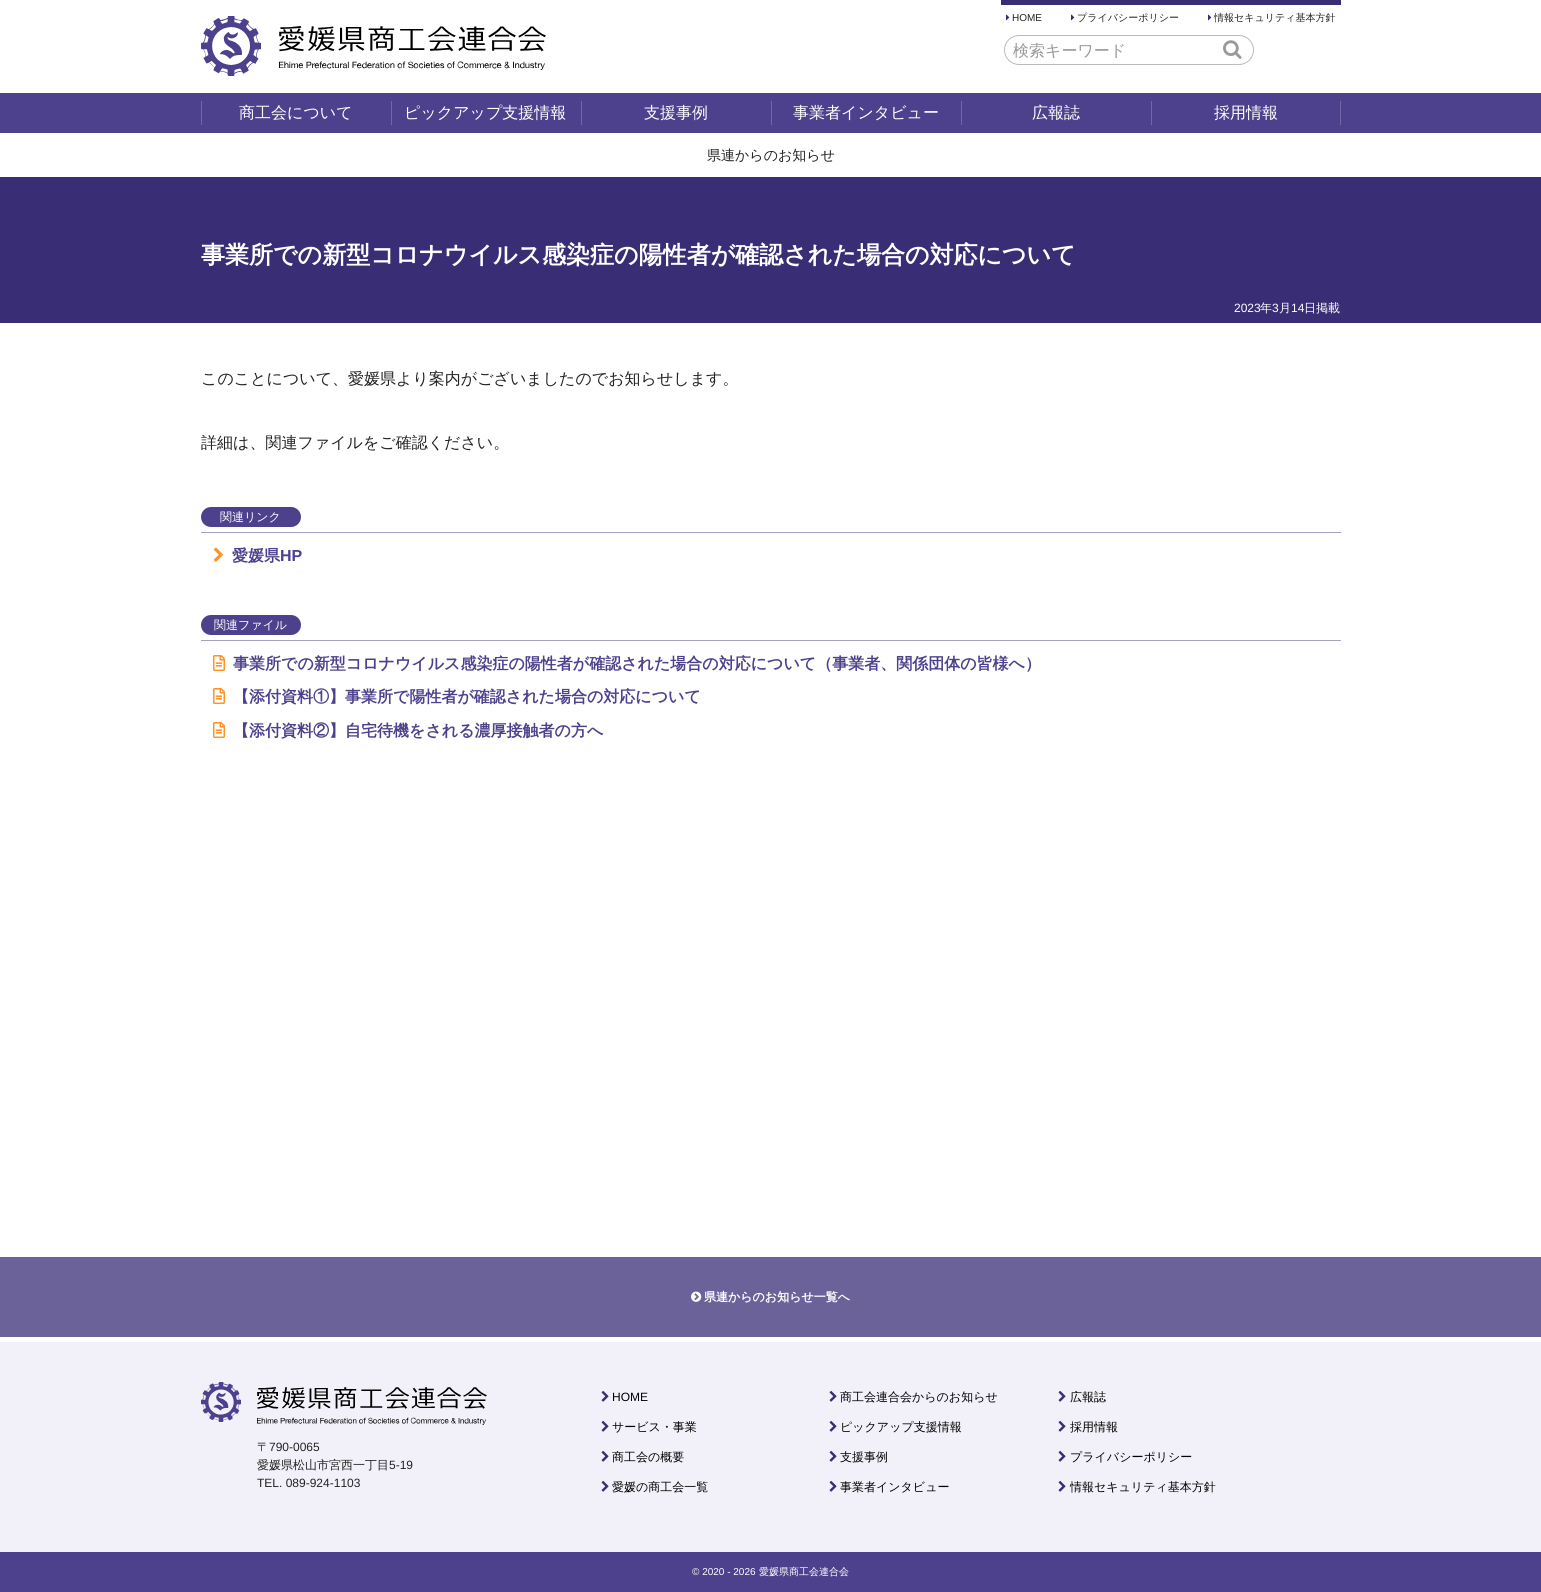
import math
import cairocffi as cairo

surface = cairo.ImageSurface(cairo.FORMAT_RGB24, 1541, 1592)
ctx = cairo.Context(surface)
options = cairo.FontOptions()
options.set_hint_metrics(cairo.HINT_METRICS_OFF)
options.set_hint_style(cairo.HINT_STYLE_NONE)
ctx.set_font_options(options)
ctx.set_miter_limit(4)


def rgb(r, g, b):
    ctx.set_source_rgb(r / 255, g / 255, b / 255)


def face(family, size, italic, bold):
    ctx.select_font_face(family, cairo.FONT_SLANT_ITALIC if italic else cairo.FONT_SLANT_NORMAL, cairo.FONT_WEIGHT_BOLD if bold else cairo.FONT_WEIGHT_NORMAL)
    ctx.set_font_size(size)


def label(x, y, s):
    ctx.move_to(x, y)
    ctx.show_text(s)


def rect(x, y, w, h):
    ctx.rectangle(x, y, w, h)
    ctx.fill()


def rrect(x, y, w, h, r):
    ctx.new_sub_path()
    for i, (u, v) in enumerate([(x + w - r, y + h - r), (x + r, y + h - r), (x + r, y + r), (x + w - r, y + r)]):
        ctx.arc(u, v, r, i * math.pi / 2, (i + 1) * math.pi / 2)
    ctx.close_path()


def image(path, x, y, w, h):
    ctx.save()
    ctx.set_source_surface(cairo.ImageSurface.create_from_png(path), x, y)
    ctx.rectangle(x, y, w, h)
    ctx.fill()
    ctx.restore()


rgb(255, 255, 255)
ctx.paint()
image('image0.png', 201, 16, 60, 60)
image('image1.png', 279, 26, 267, 44)
rgb(57, 45, 118)
rect(1001, 0, 340, 5)
image('image2.png', 1006, 14, 4, 7)
face('Liberation Sans', 10, 0, 0)
rgb(34, 34, 34)
label(1012, 21, 'HOME')
image('image2.png', 1071, 14, 4, 7)
face('WenQuanYi Zen Hei Medium', 10, 0, 0)
label(1077, 21, 'プライバシーポリシー')
image('image2.png', 1208, 14, 4, 7)
label(1214, 21, '情報セキュリティ基本方針')
rrect(1004.5, 35.5, 249, 29, 14.5)
rgb(187, 187, 187)
ctx.set_line_width(1)
ctx.stroke()
face('WenQuanYi Zen Hei Medium', 16, 0, 0)
rgb(153, 153, 153)
label(1013, 56, '検索キーワード')
image('image3.png', 1223, 40, 19, 19)
rgb(77, 65, 141)
rect(0, 93, 1541, 40)
rgb(113, 104, 164)
rect(201, 101, 1, 24)
rgb(255, 255, 255)
label(239, 118, '商工会について')
rgb(113, 104, 164)
rect(391, 101, 1, 24)
rgb(255, 255, 255)
label(404, 118, 'ピックアップ支援情報')
rgb(113, 104, 164)
rect(581, 101, 1, 24)
rgb(255, 255, 255)
label(644, 118, '支援事例')
rgb(113, 104, 164)
rect(771, 101, 1, 24)
rgb(255, 255, 255)
label(793, 118, '事業者インタビュー')
rgb(113, 104, 164)
rect(961, 101, 1, 24)
rgb(255, 255, 255)
label(1032, 118, '広報誌')
rgb(113, 104, 164)
rect(1151, 101, 1, 24)
rgb(255, 255, 255)
label(1214, 118, '採用情報')
rgb(113, 104, 164)
rect(1340, 101, 1, 24)
face('WenQuanYi Zen Hei Medium', 14, 0, 0)
rgb(34, 34, 34)
label(707, 160, '県連からのお知らせ')
rgb(57, 45, 118)
rect(0, 177, 1541, 146)
face('WenQuanYi Zen Hei', 24, 0, 1)
rgb(255, 255, 255)
label(201, 263, '事業所での新型コロナウイルス感染症の陽性者が確認された場合の対応について')
face('Liberation Sans', 12, 0, 0)
label(1234, 312, '2023')
face('WenQuanYi Zen Hei Medium', 12, 0, 0)
label(1260, 312, '年')
face('Liberation Sans', 12, 0, 0)
label(1272, 312, '3')
face('WenQuanYi Zen Hei Medium', 12, 0, 0)
label(1279, 312, '月')
face('Liberation Sans', 12, 0, 0)
label(1291, 312, '14')
face('WenQuanYi Zen Hei Medium', 12, 0, 0)
label(1304, 312, '日掲載')
face('WenQuanYi Zen Hei Medium', 16, 0, 0)
rgb(34, 34, 34)
label(201, 384, 'このことについて、愛媛県より案内がございましたのでお知らせします。')
ctx.save()
ctx.rectangle(201, 347, 1140, 459)
ctx.clip()
label(201, 448, '詳細は、関連ファイルをご確認ください。')
ctx.restore()
rgb(77, 65, 141)
rrect(201, 507, 100, 20, 10)
ctx.fill()
face('WenQuanYi Zen Hei Medium', 12, 0, 0)
rgb(255, 255, 255)
label(220, 521, '関連リンク')
rgb(166, 160, 198)
rect(201, 532, 1140, 1)
image('image4.png', 213, 547, 10, 15)
face('WenQuanYi Zen Hei', 16, 0, 1)
rgb(77, 65, 141)
label(232, 561, '愛媛県')
face('Liberation Sans', 16, 0, 1)
label(280, 561, 'HP')
rrect(201, 615, 100, 20, 10)
ctx.fill()
face('WenQuanYi Zen Hei Medium', 12, 0, 0)
rgb(255, 255, 255)
label(214, 629, '関連ファイル')
rgb(166, 160, 198)
rect(201, 640, 1140, 1)
image('image5.png', 213, 655, 12, 16)
face('WenQuanYi Zen Hei', 16, 0, 1)
rgb(77, 65, 141)
label(233, 669, '事業所での新型コロナウイルス感染症の陽性者が確認された場合の対応について（事業者、関係団体の皆様へ）')
image('image5.png', 213, 688, 12, 16)
label(233, 702, '【添付資料①】事業所で陽性者が確認された場合の対応について')
image('image5.png', 213, 722, 12, 16)
label(233, 736, '【添付資料②】自宅待機をされる濃厚接触者の方へ')
rgb(107, 98, 153)
rect(0, 1257, 1541, 80)
image('image6.png', 691, 1291, 11, 11)
face('WenQuanYi Zen Hei', 12, 0, 1)
rgb(255, 255, 255)
label(704, 1301, '県連からのお知らせ一覧へ')
rgb(242, 241, 249)
rect(0, 1342, 1541, 210)
image('image7.png', 201, 1382, 40, 40)
image('image8.png', 257, 1387, 230, 38)
face('WenQuanYi Zen Hei Medium', 12, 0, 0)
rgb(34, 34, 34)
label(257, 1451, '〒')
face('Liberation Sans', 12, 0, 0)
label(269, 1451, '790-0065')
face('WenQuanYi Zen Hei Medium', 12, 0, 0)
label(257, 1469, '愛媛県松山市宮西一丁目')
face('Liberation Sans', 12, 0, 0)
label(389, 1469, '5-19')
label(257, 1487, 'TEL. 089-924-1103')
image('image9.png', 601, 1390, 8, 12)
rgb(0, 0, 0)
label(612, 1401, 'HOME')
image('image9.png', 601, 1420, 8, 12)
face('WenQuanYi Zen Hei Medium', 12, 0, 0)
label(612, 1431, 'サービス・事業')
image('image9.png', 601, 1450, 8, 12)
label(612, 1461, '商工会の概要')
image('image9.png', 601, 1480, 8, 12)
label(612, 1491, '愛媛の商工会一覧')
image('image9.png', 829, 1390, 8, 12)
label(840, 1401, '商工会連合会からのお知らせ')
image('image9.png', 829, 1420, 8, 12)
label(840, 1431, 'ピックアップ支援情報')
image('image9.png', 829, 1450, 8, 12)
label(840, 1461, '支援事例')
image('image9.png', 829, 1480, 8, 12)
label(840, 1491, '事業者インタビュー')
image('image9.png', 1058, 1390, 8, 12)
label(1070, 1401, '広報誌')
image('image9.png', 1058, 1420, 8, 12)
label(1070, 1431, '採用情報')
image('image9.png', 1058, 1450, 8, 12)
label(1070, 1461, 'プライバシーポリシー')
image('image9.png', 1058, 1480, 8, 12)
label(1070, 1491, '情報セキュリティ基本方針')
rgb(77, 65, 141)
rect(0, 1552, 1541, 40)
face('Liberation Sans', 10, 0, 0)
rgb(255, 255, 255)
label(692, 1575, '© 2020 - 2026')
face('WenQuanYi Zen Hei Medium', 10, 0, 0)
label(759, 1575, '愛媛県商工会連合会')
surface.write_to_png('render.png')
